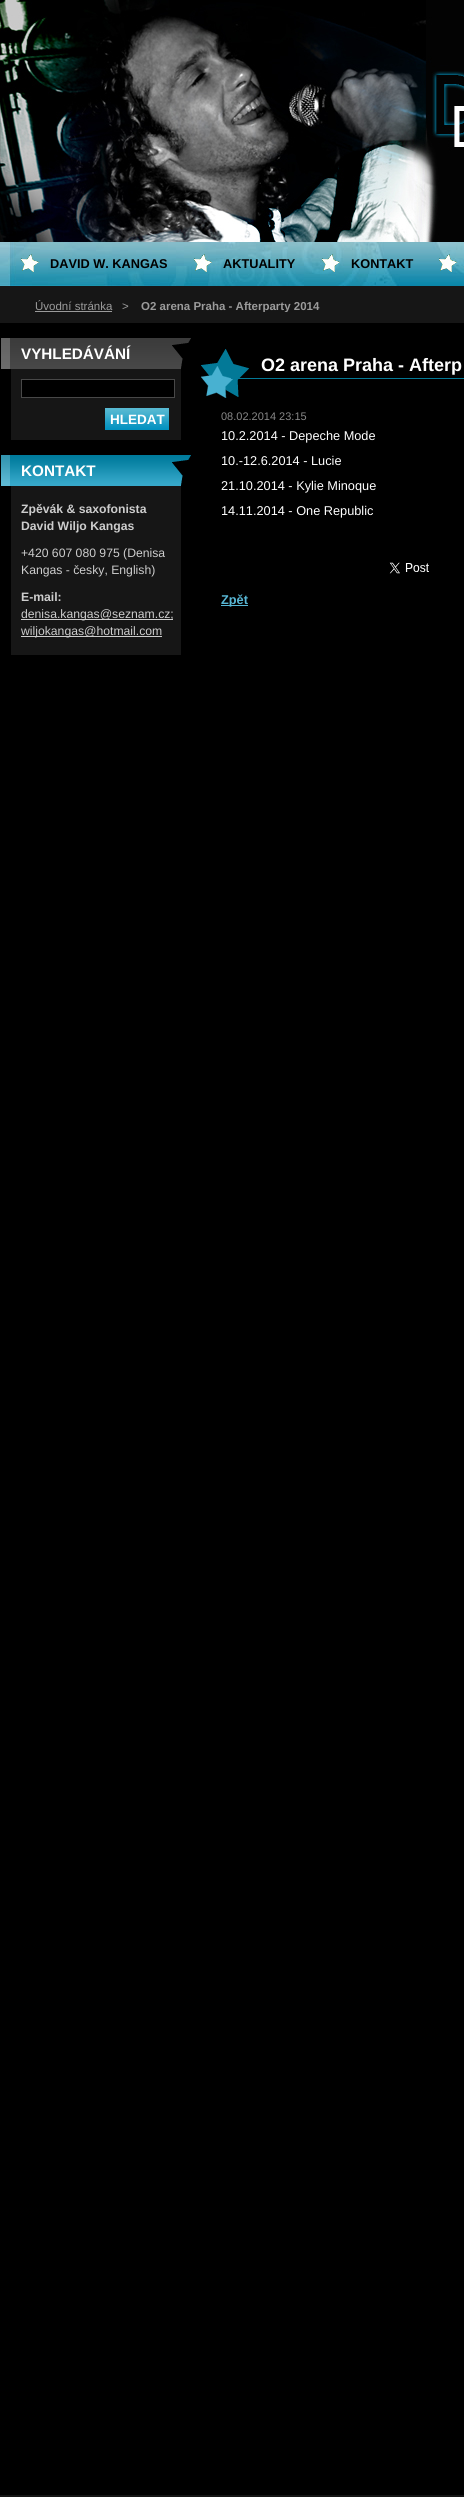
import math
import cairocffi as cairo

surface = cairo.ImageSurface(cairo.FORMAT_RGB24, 464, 2497)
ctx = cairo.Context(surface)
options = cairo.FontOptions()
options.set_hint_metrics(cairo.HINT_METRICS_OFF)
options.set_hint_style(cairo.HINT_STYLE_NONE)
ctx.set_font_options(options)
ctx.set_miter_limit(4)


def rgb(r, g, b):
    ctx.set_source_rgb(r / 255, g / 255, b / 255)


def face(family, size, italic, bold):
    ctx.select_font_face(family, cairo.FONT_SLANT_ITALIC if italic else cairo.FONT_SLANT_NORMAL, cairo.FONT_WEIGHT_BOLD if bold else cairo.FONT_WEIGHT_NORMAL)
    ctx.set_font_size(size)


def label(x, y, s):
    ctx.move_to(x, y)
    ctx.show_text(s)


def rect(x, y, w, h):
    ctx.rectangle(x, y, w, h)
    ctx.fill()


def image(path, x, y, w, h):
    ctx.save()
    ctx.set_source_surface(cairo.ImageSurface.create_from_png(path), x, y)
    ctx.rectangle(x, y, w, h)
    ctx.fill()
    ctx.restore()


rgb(0, 0, 0)
ctx.paint()
image('image0.png', 0, 0, 464, 242)
image('image1.png', 0, 242, 464, 44)
image('image2.png', 21, 254, 18, 18)
face('Liberation Sans', 12.75, 0, 1)
rgb(0, 0, 0)
label(50, 268, 'DAVID W. KANGAS')
image('image3.png', 194, 254, 18, 18)
label(223, 268, 'AKTUALITY')
image('image4.png', 322, 254, 18, 18)
label(351, 268, 'KONTAKT')
image('image5.png', 439, 254, 18, 18)
rgb(22, 22, 22)
rect(0, 286, 464, 37)
face('Liberation Sans', 11.5, 0, 0)
rgb(155, 155, 155)
label(35, 310, 'Úvodní stránka')
rect(35, 311, 77, 1)
label(122, 310, '>')
ctx.save()
ctx.rectangle(35, 300, 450, 12)
ctx.clip()
face('Liberation Sans', 11.5, 0, 1)
label(141, 310, 'O2 arena Praha - Afterparty 2014')
ctx.restore()
image('image6.png', 1, 338, 190, 31)
face('Liberation Sans', 15.25, 0, 1)
rgb(255, 255, 255)
label(21, 359, 'VYHLEDÁVÁNÍ')
rgb(22, 22, 22)
rect(11, 369, 170, 71)
rgb(0, 0, 0)
ctx.rectangle(21.5, 379.5, 153, 18)
ctx.fill_preserve()
rgb(72, 72, 72)
ctx.set_line_width(1)
ctx.stroke()
image('image7.png', 105, 408, 64, 22)
face('Liberation Sans', 13.5, 0, 1)
rgb(255, 255, 255)
label(110, 424, 'HLEDAT')
image('image8.png', 1, 455, 190, 31)
face('Liberation Sans', 15.25, 0, 1)
label(21, 476, 'KONTAKT')
rgb(22, 22, 22)
rect(11, 486, 170, 169)
face('Liberation Sans', 12.2, 0, 1)
rgb(205, 205, 205)
label(21, 513, 'Zpěvák & saxofonista')
label(21, 530, 'David Wiljo Kangas')
face('Liberation Sans', 12.2, 0, 0)
label(21, 557, '+420 607 080 975 (Denisa')
label(21, 574, 'Kangas - česky, English)')
face('Liberation Sans', 12.2, 0, 1)
label(21, 601, 'E-mail:')
rect(21, 619, 152, 1)
face('Liberation Sans', 12.2, 0, 0)
label(21, 618, 'denisa.kangas@seznam.cz;')
rect(21, 636, 141, 1)
label(21, 635, 'wiljokangas@hotmail.com')
image('image9.png', 201, 349, 263, 49)
face('Liberation Sans', 18, 0, 1)
rgb(255, 255, 255)
label(261, 371, 'O2 arena Praha - Afterp')
face('Liberation Sans', 11, 0, 0)
rgb(136, 136, 136)
label(221, 420, '08.02.2014 23:15')
face('Liberation Sans', 12.75, 0, 0)
rgb(255, 255, 255)
label(221, 440, '10.2.2014 - Depeche Mode')
label(221, 465, '10.-12.6.2014 - Lucie')
label(221, 490, '21.10.2014 - Kylie Minoque')
label(221, 515, '14.11.2014 - One Republic')
image('image10.png', 389, 562, 40, 12)
rgb(88, 183, 213)
rect(221, 605, 27, 1)
face('Liberation Sans', 12.75, 0, 1)
label(221, 604, 'Zpět')
rgb(20, 20, 20)
rect(0, 2495, 464, 2)
surface.write_to_png('render.png')
